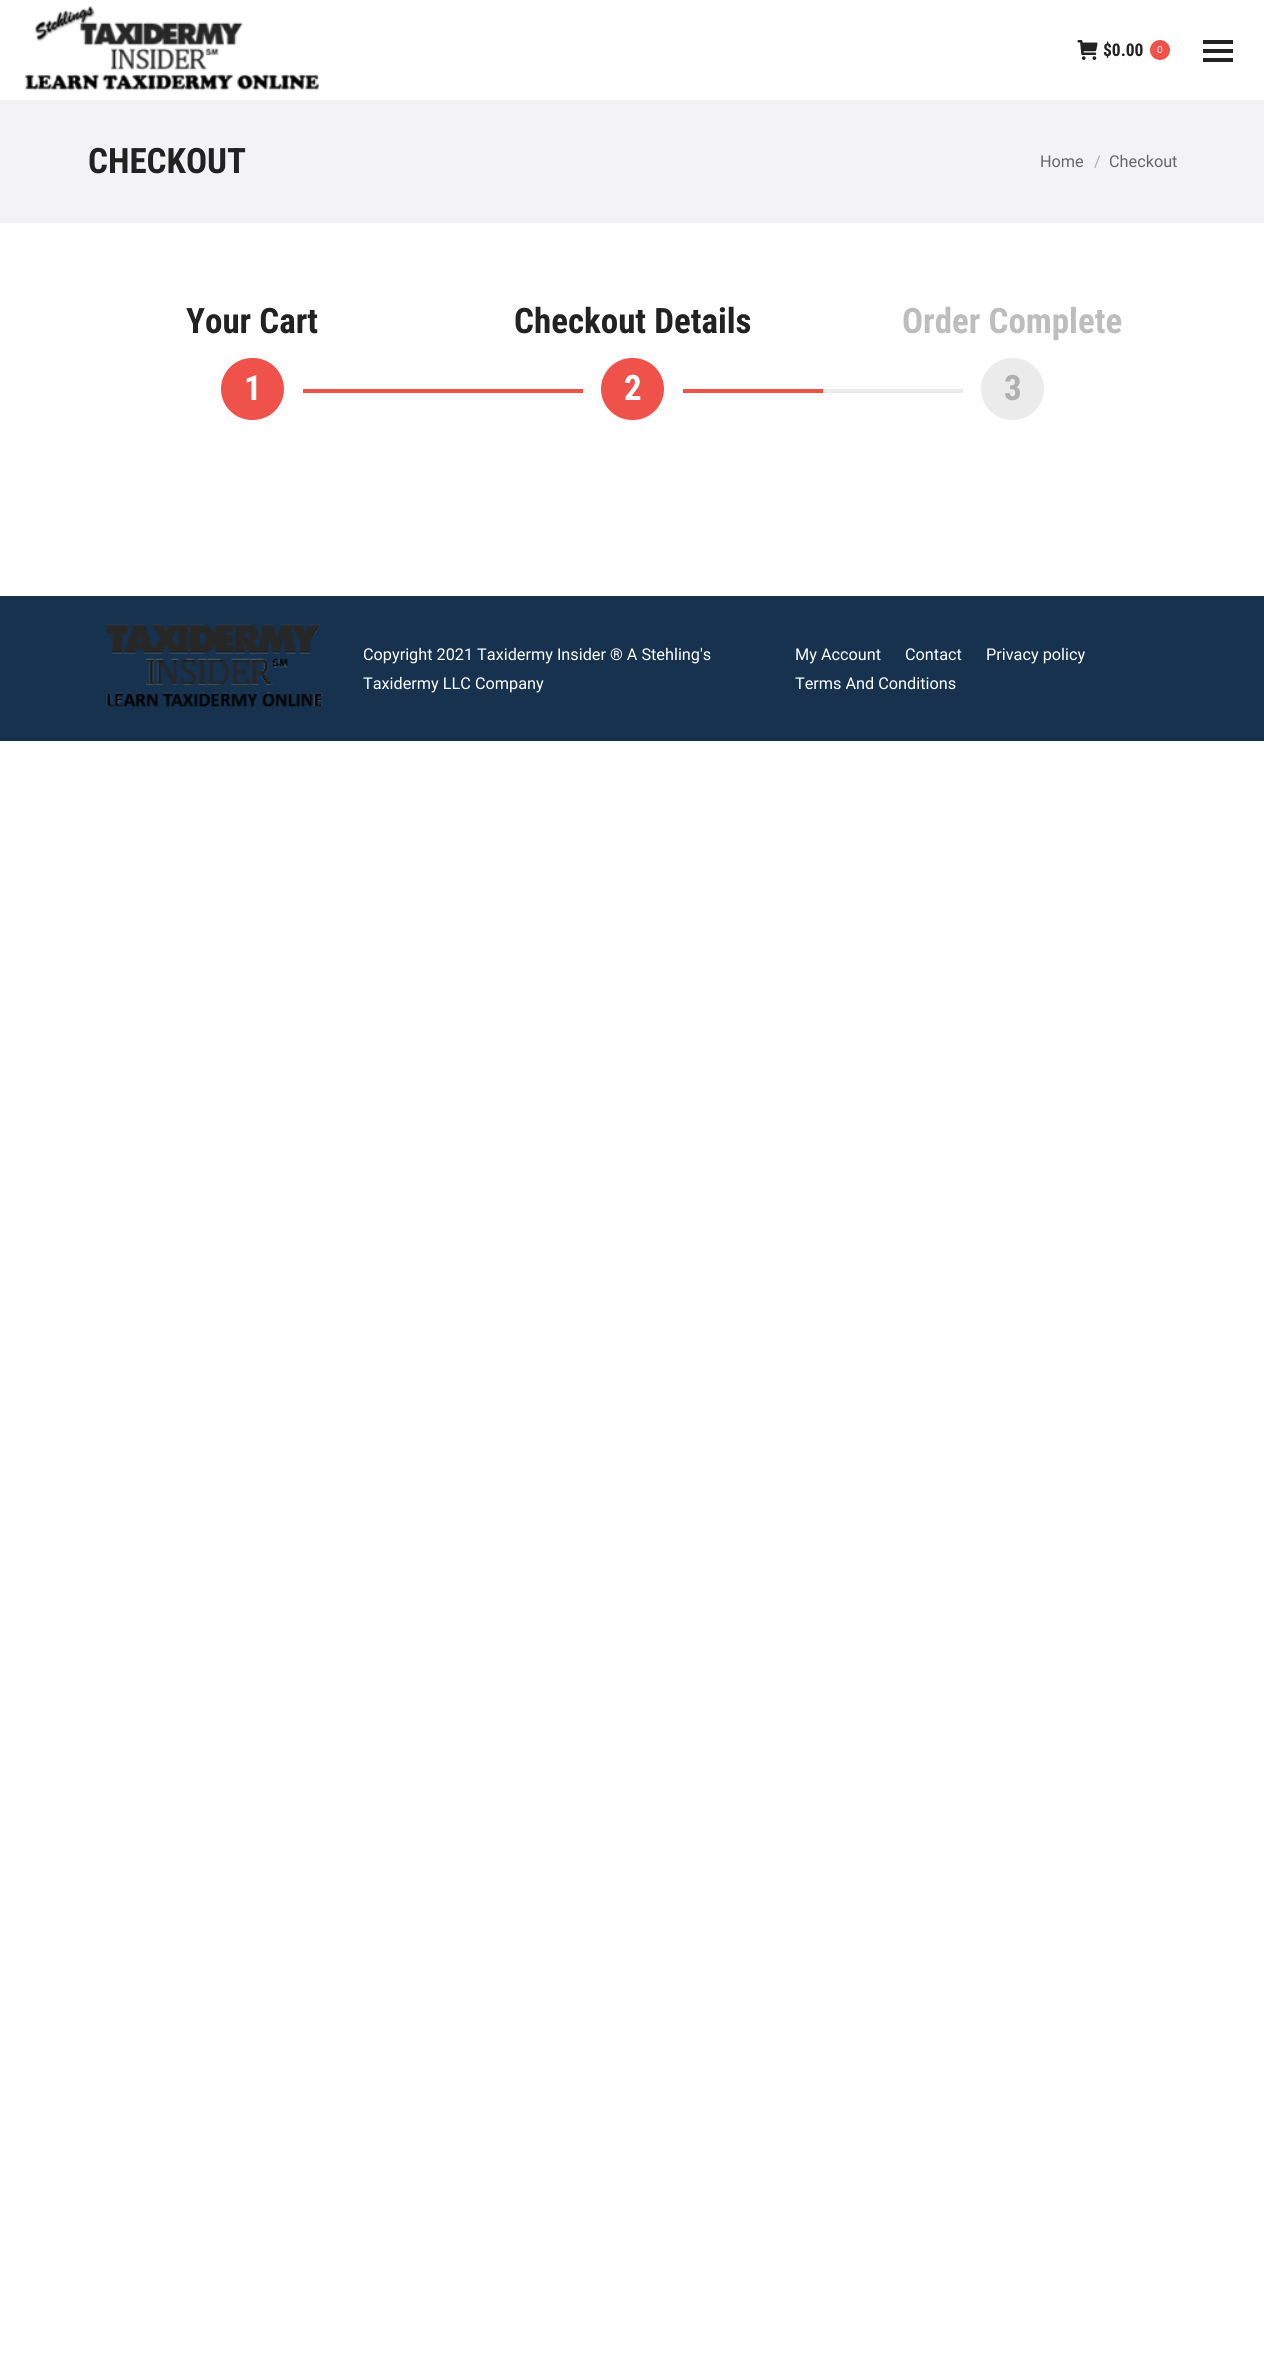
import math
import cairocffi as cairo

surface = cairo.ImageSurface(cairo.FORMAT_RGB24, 1264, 2372)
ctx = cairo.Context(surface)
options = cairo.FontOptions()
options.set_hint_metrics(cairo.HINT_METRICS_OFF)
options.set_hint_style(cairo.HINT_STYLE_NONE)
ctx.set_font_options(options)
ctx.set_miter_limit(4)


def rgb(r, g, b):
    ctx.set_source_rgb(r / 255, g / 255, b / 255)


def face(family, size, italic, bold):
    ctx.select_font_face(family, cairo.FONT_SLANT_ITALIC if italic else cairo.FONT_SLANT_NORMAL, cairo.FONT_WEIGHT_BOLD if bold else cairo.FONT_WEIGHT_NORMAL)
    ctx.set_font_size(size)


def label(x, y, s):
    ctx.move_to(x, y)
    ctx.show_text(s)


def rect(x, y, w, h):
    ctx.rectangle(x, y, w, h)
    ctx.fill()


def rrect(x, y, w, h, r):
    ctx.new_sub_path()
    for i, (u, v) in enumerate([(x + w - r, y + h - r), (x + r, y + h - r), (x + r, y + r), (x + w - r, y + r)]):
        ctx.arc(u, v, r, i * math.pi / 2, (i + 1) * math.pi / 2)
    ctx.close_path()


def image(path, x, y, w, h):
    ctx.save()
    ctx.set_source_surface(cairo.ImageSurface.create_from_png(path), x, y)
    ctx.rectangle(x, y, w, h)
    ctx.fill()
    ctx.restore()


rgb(255, 255, 255)
ctx.paint()
image('image0.png', 25, 6, 294, 85)
image('image1.png', 1077, 40, 21, 20)
face('Roboto Condensed', 17.5, 0, 1)
rgb(34, 34, 34)
label(1103, 56, '$0.00')
rgb(239, 82, 74)
ctx.new_path()
ctx.arc(1160, 50, 10, 0, 2 * math.pi)
ctx.fill()
face('Liberation Sans', 10, 0, 0)
rgb(255, 255, 255)
label(1157, 53, '0')
rgb(34, 34, 34)
rect(1203, 40, 30, 4)
rect(1203, 49, 30, 4)
rect(1203, 58, 30, 4)
rgb(243, 243, 245)
rect(0, 100, 1264, 123)
face('Roboto Condensed', 35, 0, 1)
rgb(34, 34, 34)
label(88, 173, 'CHECKOUT')
face('Roboto', 16.25, 0, 0)
rgb(102, 102, 102)
label(1040, 167, 'Home')
rgb(175, 175, 175)
label(1094, 167, '/')
rgb(102, 102, 102)
label(1109, 167, 'Checkout')
face('Roboto Condensed', 35, 0, 1)
rgb(34, 34, 34)
label(186, 333, 'Your Cart')
rgb(239, 82, 74)
rrect(221, 358, 63, 62, 31)
ctx.fill()
rgb(255, 255, 255)
label(244, 400, '1')
rgb(239, 82, 74)
rect(303, 389, 280, 4)
rgb(34, 34, 34)
label(514, 333, 'Checkout Details')
rgb(239, 82, 74)
rrect(601, 358, 63, 62, 31)
ctx.fill()
rgb(255, 255, 255)
label(624, 400, '2')
rgb(239, 82, 74)
rect(683, 389, 140, 4)
rgb(189, 189, 189)
label(902, 333, 'Order Complete')
rgb(235, 235, 235)
rect(823, 389, 140, 4)
rrect(981, 358, 63, 62, 31)
ctx.fill()
rgb(175, 175, 175)
label(1004, 400, '3')
rgb(23, 50, 79)
rect(0, 596, 1264, 145)
image('image2.png', 106, 624, 217, 83)
face('Roboto', 16.25, 0, 0)
rgb(255, 255, 255)
label(363, 660, 'Copyright 2021 Taxidermy Insider ® A Stehling\'s')
label(363, 689, 'Taxidermy LLC Company')
label(795, 660, 'My Account')
label(905, 660, 'Contact')
label(986, 660, 'Privacy policy')
label(795, 689, 'Terms And Conditions')
surface.write_to_png('render.png')
